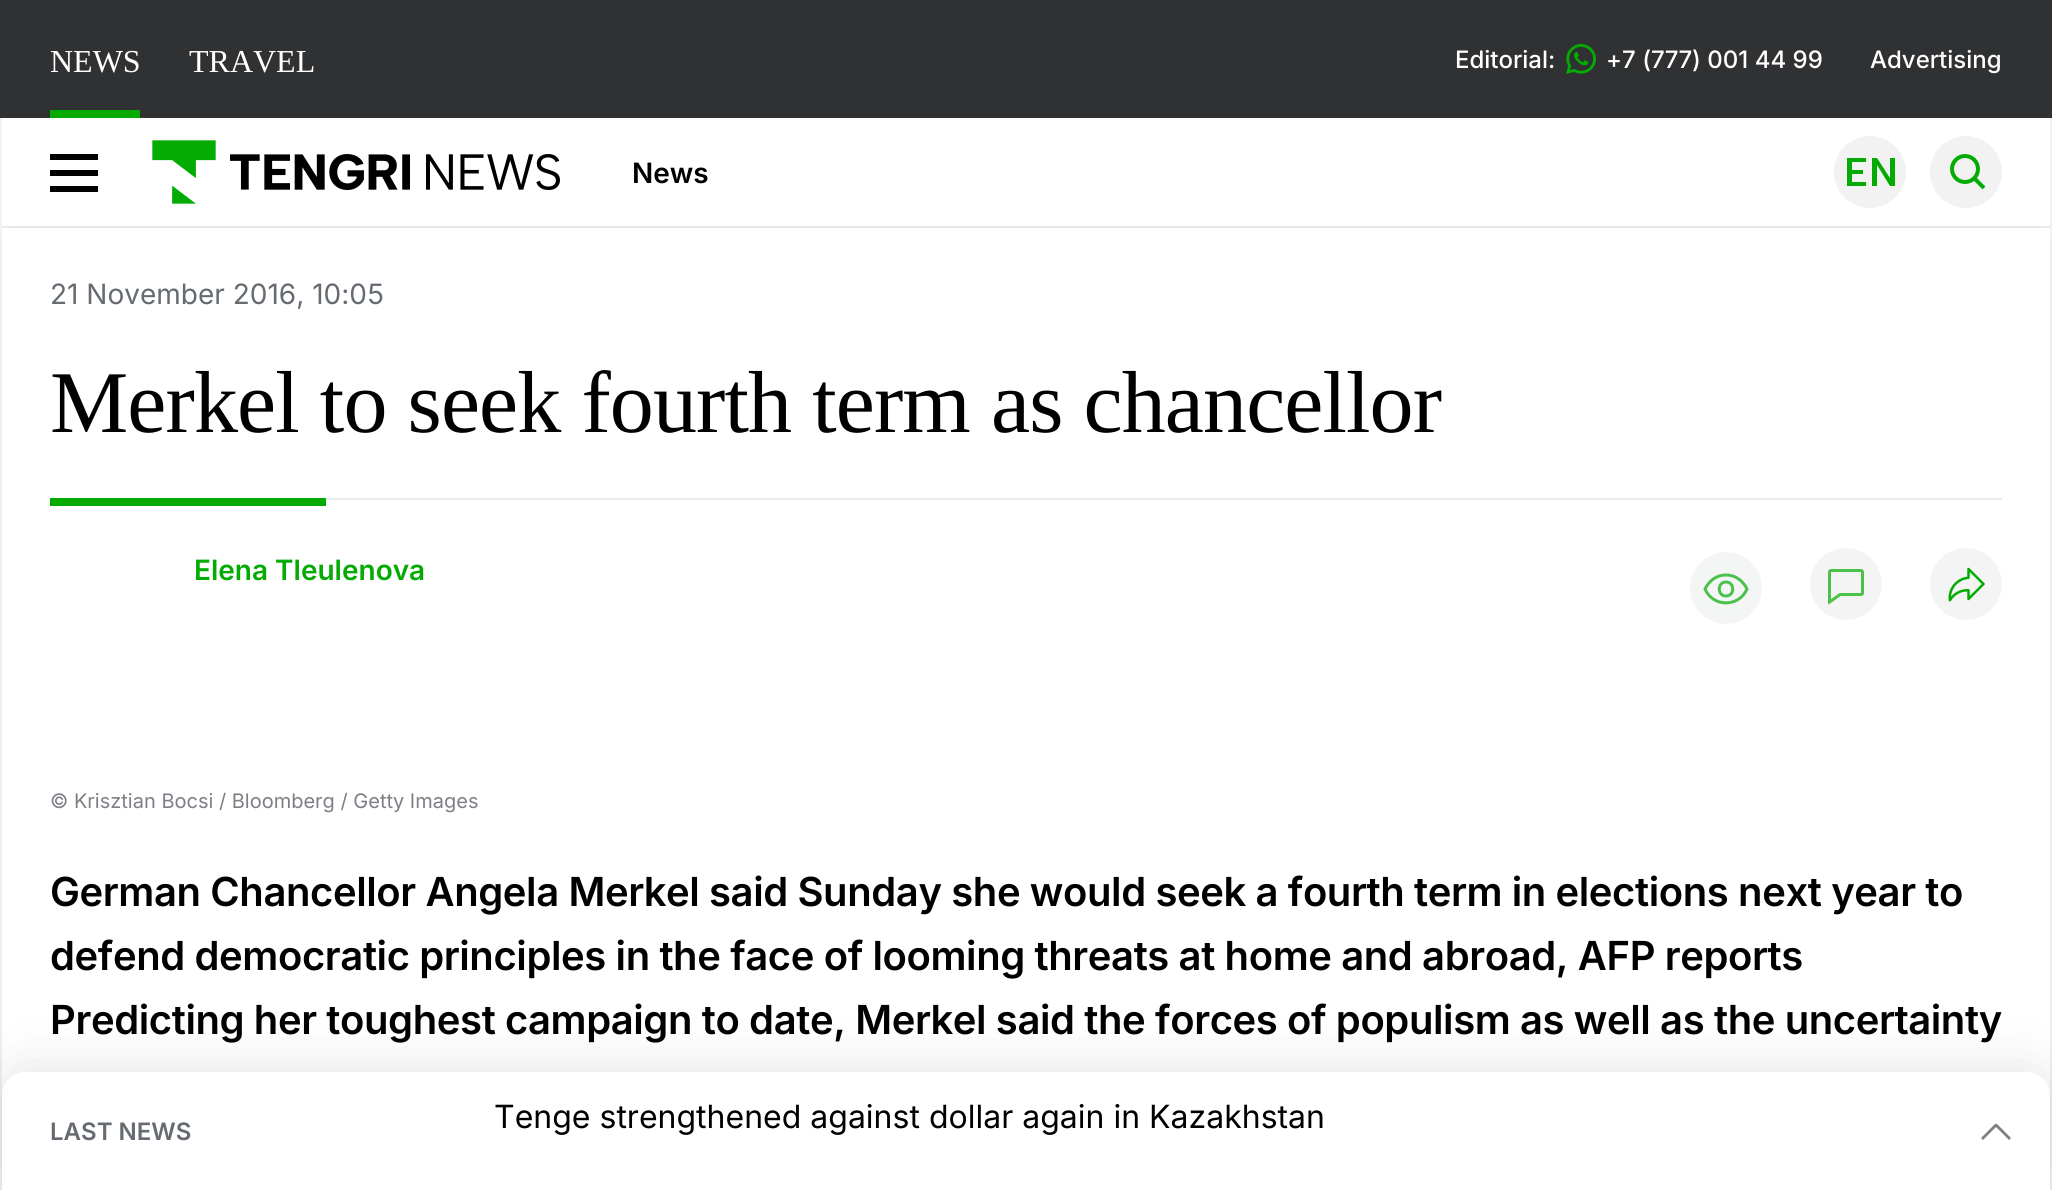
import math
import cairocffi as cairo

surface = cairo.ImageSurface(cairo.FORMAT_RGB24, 2052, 1190)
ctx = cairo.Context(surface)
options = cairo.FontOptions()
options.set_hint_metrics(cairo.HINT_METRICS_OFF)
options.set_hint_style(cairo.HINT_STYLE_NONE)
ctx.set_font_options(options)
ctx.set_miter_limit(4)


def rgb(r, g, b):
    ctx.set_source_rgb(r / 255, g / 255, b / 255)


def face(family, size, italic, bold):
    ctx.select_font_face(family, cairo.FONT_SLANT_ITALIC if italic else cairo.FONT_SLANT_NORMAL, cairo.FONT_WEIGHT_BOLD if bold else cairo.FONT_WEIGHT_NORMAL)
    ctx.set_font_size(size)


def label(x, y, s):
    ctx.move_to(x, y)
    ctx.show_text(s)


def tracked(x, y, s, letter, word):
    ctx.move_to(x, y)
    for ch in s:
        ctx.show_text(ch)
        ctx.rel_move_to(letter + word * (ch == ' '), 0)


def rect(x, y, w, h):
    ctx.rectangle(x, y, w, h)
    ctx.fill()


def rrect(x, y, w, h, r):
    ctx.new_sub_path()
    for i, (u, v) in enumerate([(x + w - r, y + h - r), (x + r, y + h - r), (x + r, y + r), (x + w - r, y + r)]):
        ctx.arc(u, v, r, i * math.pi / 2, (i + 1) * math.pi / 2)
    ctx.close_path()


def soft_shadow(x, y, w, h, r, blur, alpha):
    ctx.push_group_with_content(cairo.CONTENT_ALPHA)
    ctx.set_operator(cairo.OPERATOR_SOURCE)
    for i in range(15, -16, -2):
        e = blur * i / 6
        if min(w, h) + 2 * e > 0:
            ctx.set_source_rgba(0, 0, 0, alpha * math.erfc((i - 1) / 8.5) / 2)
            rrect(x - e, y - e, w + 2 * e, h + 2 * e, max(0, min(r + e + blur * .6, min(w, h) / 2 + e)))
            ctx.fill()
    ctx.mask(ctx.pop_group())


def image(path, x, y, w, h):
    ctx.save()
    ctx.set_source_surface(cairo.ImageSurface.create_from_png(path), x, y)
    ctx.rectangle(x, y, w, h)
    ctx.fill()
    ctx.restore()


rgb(241, 242, 241)
ctx.paint()
rgb(48, 49, 51)
rect(0, 0, 2052, 118)
rgb(3, 171, 2)
rect(50, 110, 90, 8)
face('Liberation Serif', 32, 0, 0)
rgb(255, 255, 255)
label(50, 72, 'NEWS')
label(189, 72, 'TRAVEL')
face('Inter Medium', 24, 0, 0)
label(1455, 68, 'Editorial:')
image('image0.png', 1566, 44, 30, 30)
label(1606, 68, '+7 (777) 001 44 99')
label(1870, 68, 'Advertising')
rect(2, 118, 2048, 108)
rgb(234, 234, 236)
rect(2, 226, 2048, 2)
rgb(0, 0, 0)
rect(50, 154, 48, 6)
rect(50, 170, 48, 6)
rect(50, 186, 48, 6)
image('image1.png', 152, 140, 408, 64)
face('Inter SemiBold', 28, 0, 0)
label(632, 183, 'News')
rgb(242, 242, 242)
ctx.new_path()
ctx.arc(1870, 172, 36, 0, 2 * math.pi)
ctx.fill()
rgb(3, 171, 2)
ctx.new_path()
ctx.move_to(1866, 162)
ctx.line_to(1852, 162)
ctx.line_to(1852, 170)
ctx.line_to(1863, 170)
ctx.line_to(1863, 174)
ctx.line_to(1852, 174)
ctx.line_to(1852, 182)
ctx.line_to(1866, 182)
ctx.line_to(1866, 186)
ctx.line_to(1847, 186)
ctx.line_to(1847, 158)
ctx.line_to(1866, 158)
ctx.close_path()
ctx.move_to(1895, 158)
ctx.line_to(1895, 186)
ctx.line_to(1890, 186)
ctx.line_to(1877, 165)
ctx.line_to(1877, 186)
ctx.line_to(1872, 186)
ctx.line_to(1872, 158)
ctx.line_to(1877, 158)
ctx.line_to(1890, 178)
ctx.line_to(1890, 158)
ctx.close_path()
ctx.fill()
rgb(242, 242, 242)
ctx.arc(1966, 172, 36, 0, 2 * math.pi)
ctx.fill()
ctx.arc(1965, 169, 13, 0, 2 * math.pi)
rgb(3, 171, 2)
ctx.set_line_width(4)
ctx.stroke()
ctx.new_path()
ctx.move_to(1974, 178)
ctx.line_to(1984, 188)
ctx.stroke()
rgb(0, 0, 0)
soft_shadow(2, 228, 2048, 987, 16, 3, 0.05)
rgb(255, 255, 255)
rect(2, 228, 2048, 868)
face('Inter', 28, 0, 0)
rgb(101, 107, 113)
label(50, 304, '21 November 2016, 10:05')
rgb(234, 234, 236)
rect(326, 498, 1676, 2)
face('Liberation Serif', 88, 0, 0)
rgb(0, 0, 0)
tracked(50, 432, 'Merkel to seek fourth term as chancellor', -0.9, 0)
rgb(3, 171, 2)
rect(50, 498, 276, 8)
face('Inter SemiBold', 28, 0, 0)
label(194, 580, 'Elena Tleulenova')
rgb(244, 245, 245)
ctx.new_path()
ctx.arc(1726, 588, 36, 0, 2 * math.pi)
ctx.fill()
ctx.new_path()
ctx.move_to(1726, 575)
ctx.curve_to(1711, 575, 1705, 589, 1705, 589)
ctx.curve_to(1713, 607.5, 1739, 607.5, 1747, 589)
ctx.curve_to(1747, 589, 1741, 575, 1726, 575)
ctx.close_path()
ctx.move_to(1726, 596)
ctx.curve_to(1735, 596, 1735, 582, 1726, 582)
ctx.curve_to(1717, 582, 1717, 596, 1726, 596)
ctx.close_path()
rgb(75, 193, 75)
ctx.set_line_width(3)
ctx.set_line_cap(cairo.LINE_CAP_ROUND)
ctx.set_line_join(cairo.LINE_JOIN_ROUND)
ctx.stroke()
image('image2.png', 1810, 548, 72, 72)
image('image3.png', 1930, 548, 72, 72)
face('Inter', 20, 0, 0)
rgb(124, 127, 133)
label(50, 808, '© Krisztian Bocsi / Bloomberg / Getty Images')
face('Inter SemiBold', 40, 0, 0)
rgb(0, 0, 0)
tracked(50, 906, 'German Chancellor Angela Merkel said Sunday she would seek a fourth term in elections next year to', -0.4, 0)
tracked(50, 970, 'defend democratic principles in the face of looming threats at home and abroad, AFP reports', -0.4, 0)
tracked(50, 1034, 'Predicting her toughest campaign to date, Merkel said the forces of populism as well as the uncertainty', -0.4, 0)
rgb(0, 0, 0)
soft_shadow(2, 1072, 2048, 118, 24, 30, 0.12)
rgb(255, 255, 255)
ctx.new_path()
ctx.move_to(26, 1072)
ctx.line_to(2026, 1072)
ctx.curve_to(2039.5, 1072, 2050, 1082.5, 2050, 1096)
ctx.line_to(2050, 1190)
ctx.line_to(2, 1190)
ctx.line_to(2, 1096)
ctx.curve_to(2, 1082.5, 12.5, 1072, 26, 1072)
ctx.close_path()
ctx.fill()
face('Inter SemiBold', 24, 0, 0)
rgb(101, 107, 113)
label(50, 1140, 'LAST NEWS')
rgb(128, 128, 128)
ctx.new_path()
ctx.move_to(1994.5, 1124.5)
ctx.curve_to(1995.5, 1123.5, 1996.5, 1123.5, 1997.5, 1124.5)
ctx.line_to(2011, 1138)
ctx.line_to(2009, 1140)
ctx.line_to(1996, 1127)
ctx.line_to(1983, 1140)
ctx.line_to(1981, 1138)
ctx.close_path()
ctx.fill()
face('Inter', 32, 0, 0)
rgb(0, 0, 0)
label(494, 1128, 'Tenge strengthened against dollar again in Kazakhstan')
surface.write_to_png('render.png')
